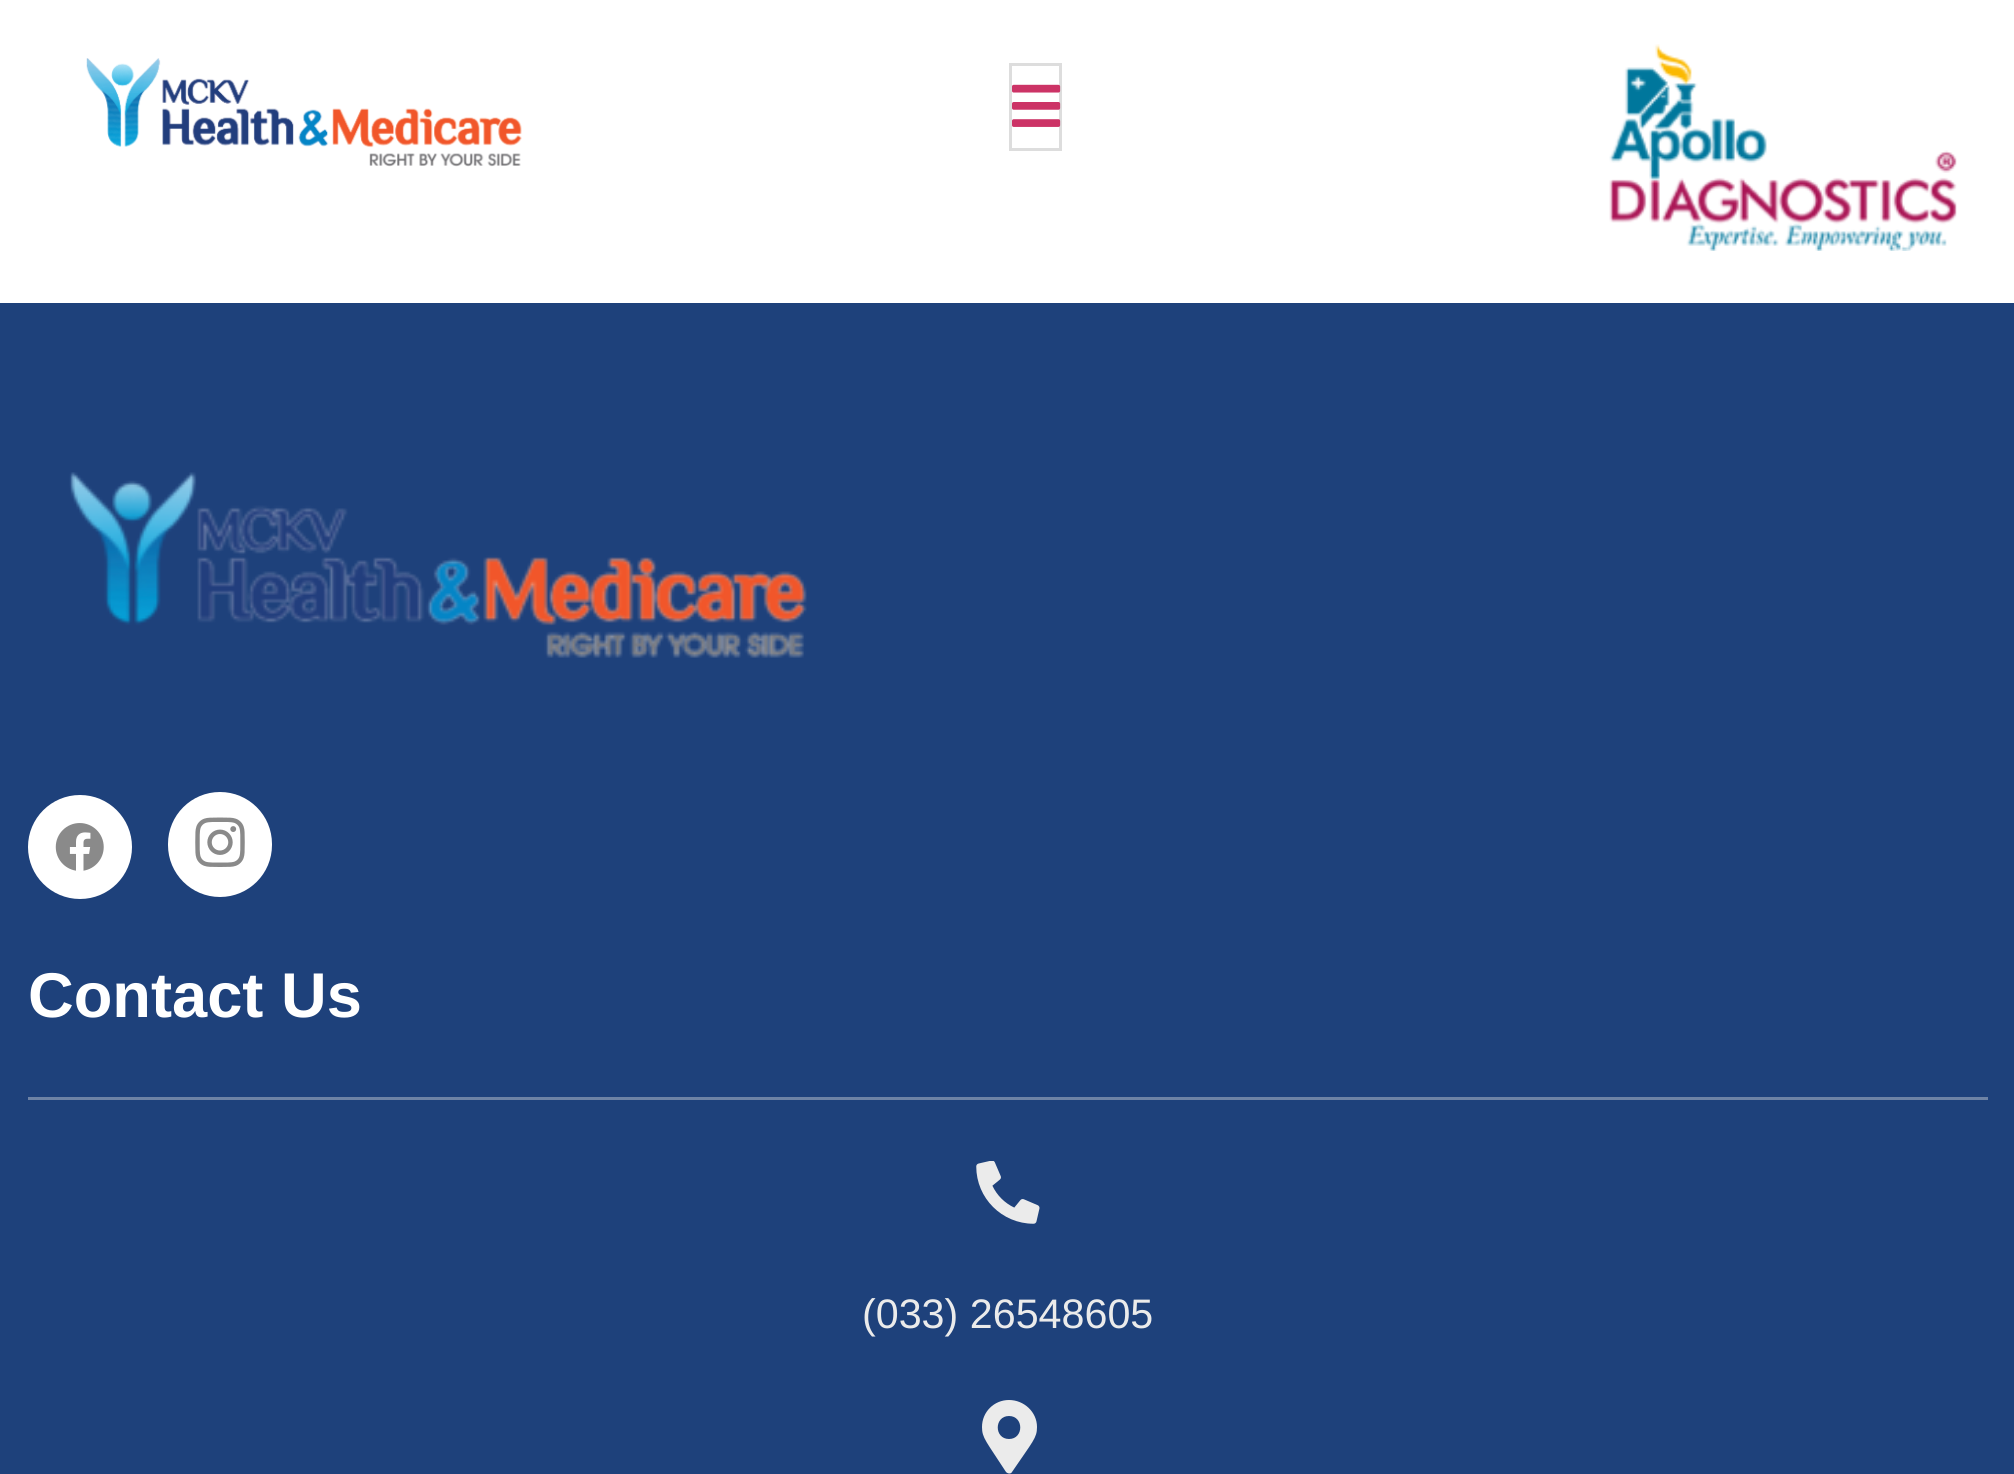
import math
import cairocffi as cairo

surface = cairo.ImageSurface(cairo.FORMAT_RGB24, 2014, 1474)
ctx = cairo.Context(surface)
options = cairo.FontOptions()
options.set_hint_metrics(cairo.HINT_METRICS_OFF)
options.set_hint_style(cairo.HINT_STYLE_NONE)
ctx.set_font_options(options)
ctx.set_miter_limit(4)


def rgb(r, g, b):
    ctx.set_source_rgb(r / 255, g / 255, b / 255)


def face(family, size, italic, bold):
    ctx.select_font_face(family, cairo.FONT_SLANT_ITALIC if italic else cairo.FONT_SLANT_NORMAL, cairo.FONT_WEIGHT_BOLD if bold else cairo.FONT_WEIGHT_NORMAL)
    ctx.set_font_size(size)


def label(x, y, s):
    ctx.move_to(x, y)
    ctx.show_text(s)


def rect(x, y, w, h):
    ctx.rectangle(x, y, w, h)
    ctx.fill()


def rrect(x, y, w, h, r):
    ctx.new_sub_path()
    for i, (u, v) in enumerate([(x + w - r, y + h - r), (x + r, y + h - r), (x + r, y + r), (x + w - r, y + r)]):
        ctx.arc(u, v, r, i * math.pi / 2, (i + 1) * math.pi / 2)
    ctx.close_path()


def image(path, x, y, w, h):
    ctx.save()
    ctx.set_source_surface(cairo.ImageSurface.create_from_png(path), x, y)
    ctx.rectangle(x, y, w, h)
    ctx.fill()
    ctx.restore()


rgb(255, 255, 255)
ctx.paint()
image('image0.png', 86, 58, 436, 109)
ctx.rectangle(1010.5, 64.5, 50, 85)
rgb(221, 221, 221)
ctx.set_line_width(3)
ctx.stroke()
image('image1.png', 1012, 84, 49, 43)
image('image2.png', 1609, 44, 348, 207)
rgb(30, 65, 123)
rect(0, 303, 2014, 1171)
image('image3.png', 69, 472, 738, 186)
rgb(255, 255, 255)
ctx.arc(80, 847, 52, 0, 2 * math.pi)
ctx.fill()
image('image4.png', 55, 823, 49, 48)
rrect(168, 792, 104, 105, 52)
ctx.fill()
image('image5.png', 195, 817, 50, 50)
face('Liberation Sans', 63.25, 0, 1)
label(28, 1017, 'Contact Us')
rgb(110, 131, 165)
rect(28, 1097, 1960, 3)
image('image6.png', 976, 1161, 64, 63)
face('Liberation Sans', 41.25, 0, 0)
rgb(235, 235, 235)
label(862, 1328, '(033) 26548605')
ctx.new_path()
ctx.move_to(1006, 1472)
ctx.curve_to(986, 1441, 982, 1438, 982, 1427)
ctx.curve_to(982, 1412, 994, 1400, 1009, 1400)
ctx.curve_to(1024, 1400, 1037, 1412, 1037, 1427)
ctx.curve_to(1037, 1438, 1033, 1441, 1012, 1472)
ctx.curve_to(1011, 1474, 1008, 1474, 1006, 1472)
ctx.close_path()
ctx.move_to(1009, 1439)
ctx.curve_to(1024, 1439, 1024, 1416, 1009, 1416)
ctx.curve_to(994, 1416, 994, 1439, 1009, 1439)
ctx.close_path()
ctx.fill()
surface.write_to_png('render.png')
